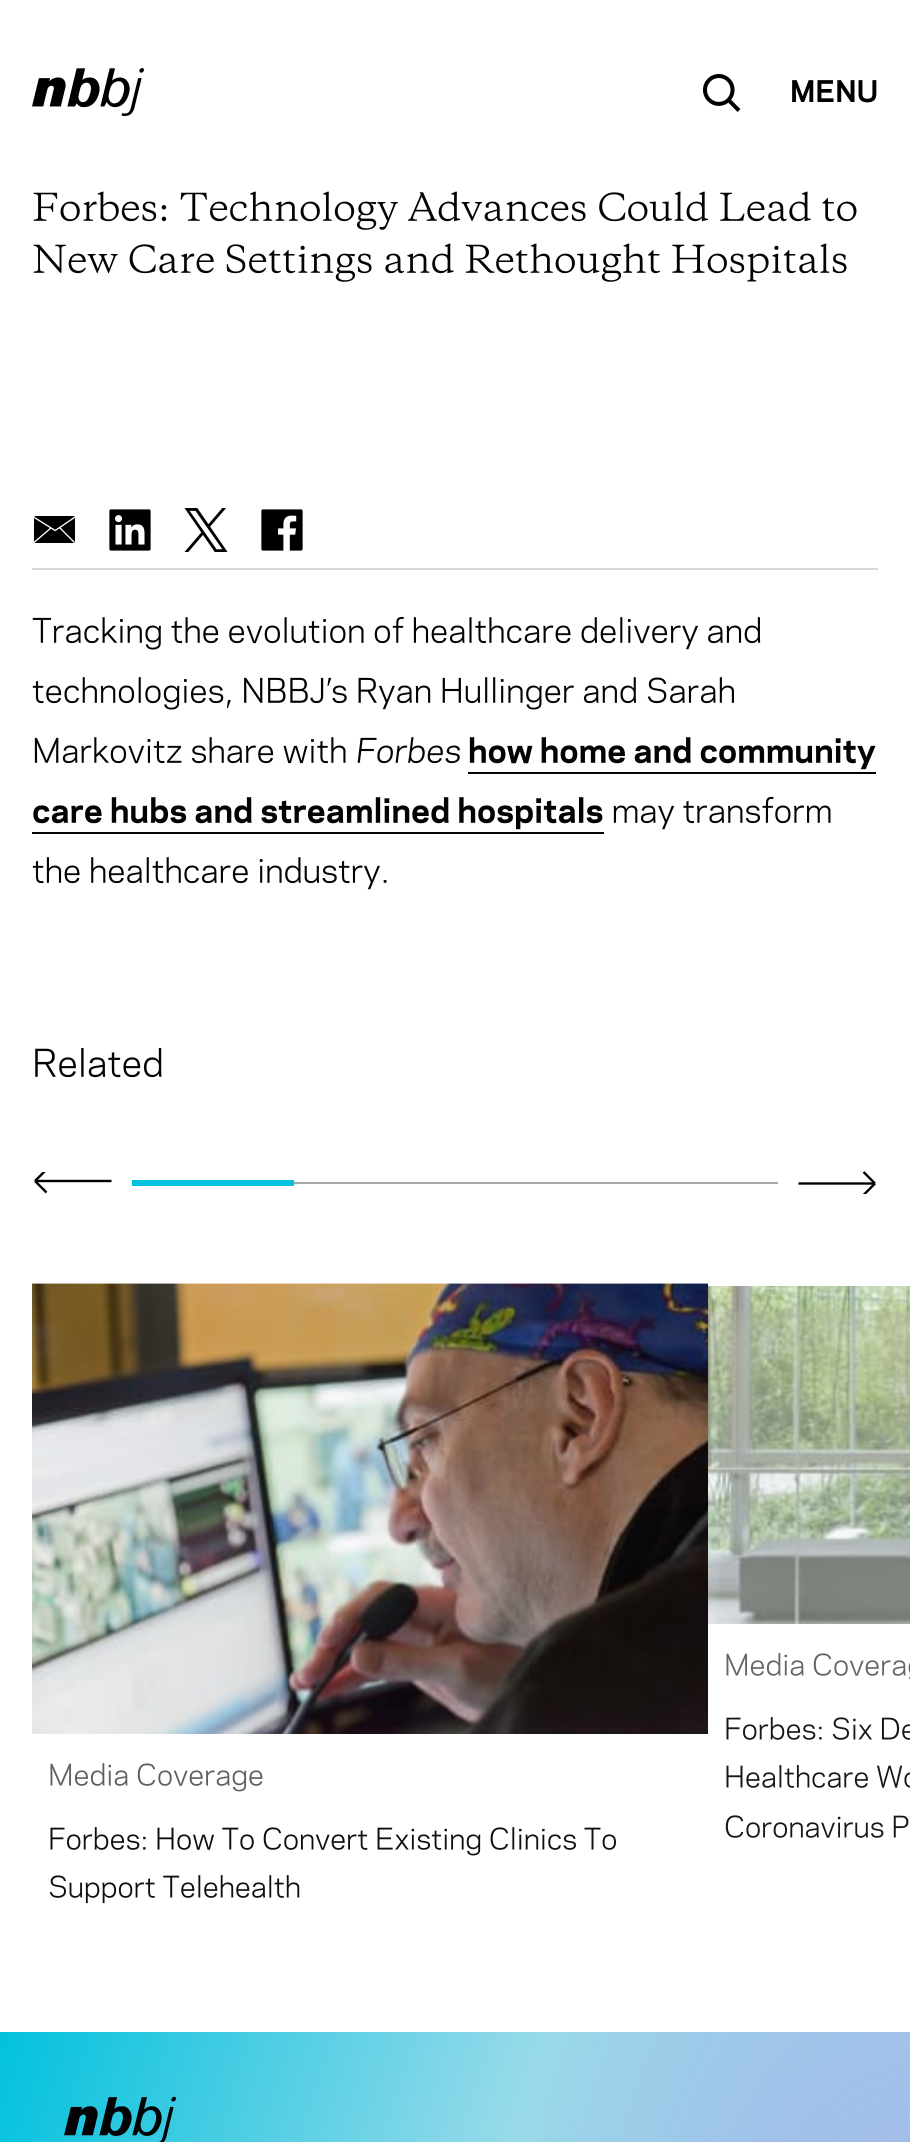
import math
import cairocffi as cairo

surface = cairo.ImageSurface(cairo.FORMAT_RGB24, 910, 2142)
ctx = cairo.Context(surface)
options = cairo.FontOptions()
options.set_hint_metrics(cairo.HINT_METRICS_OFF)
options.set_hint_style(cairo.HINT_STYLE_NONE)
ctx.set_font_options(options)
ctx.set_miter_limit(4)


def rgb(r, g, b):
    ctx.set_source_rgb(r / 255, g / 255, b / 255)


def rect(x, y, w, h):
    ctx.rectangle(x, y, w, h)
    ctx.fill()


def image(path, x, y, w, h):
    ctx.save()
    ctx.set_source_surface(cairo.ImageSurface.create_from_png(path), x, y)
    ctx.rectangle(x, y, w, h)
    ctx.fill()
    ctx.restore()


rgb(255, 255, 255)
ctx.paint()
image('image0.png', 32, 68, 112, 48)
image('image1.png', 703, 74, 38, 38)
image('image2.png', 792, 80, 85, 23)
image('image3.png', 33, 191, 824, 39)
image('image4.png', 33, 243, 814, 39)
rgb(215, 215, 215)
rect(32, 568, 846, 2)
image('image5.png', 34, 516, 41, 27)
image('image6.png', 109, 509, 42, 42)
image('image7.png', 184, 508, 44, 44)
image('image8.png', 261, 509, 42, 42)
image('image9.png', 32, 616, 729, 34)
image('image10.png', 32, 677, 702, 33)
image('image11.png', 34, 737, 312, 27)
image('image12.png', 357, 737, 103, 27)
image('image13.png', 469, 737, 407, 33)
gradient = cairo.LinearGradient(19, 774, 876, 774)
gradient.add_color_stop_rgba(0, 0.6, 0.855, 0.914, 1)
gradient.add_color_stop_rgba(0.5, 0.573, 0.012, 1, 1)
gradient.add_color_stop_rgba(0.51, 0.012, 0.012, 0.012, 1)
gradient.add_color_stop_rgba(1, 0.012, 0.012, 0.012, 1)
ctx.set_source(gradient)
rect(468, 772, 408, 2)
image('image14.png', 33, 797, 570, 33)
image('image15.png', 613, 796, 218, 34)
gradient = cairo.LinearGradient(-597, 834, 604, 834)
gradient.add_color_stop_rgba(0, 0.6, 0.855, 0.914, 1)
gradient.add_color_stop_rgba(0.5, 0.573, 0.012, 1, 1)
gradient.add_color_stop_rgba(0.51, 0.012, 0.012, 0.012, 1)
gradient.add_color_stop_rgba(1, 0.012, 0.012, 0.012, 1)
ctx.set_source(gradient)
rect(32, 832, 572, 2)
image('image16.png', 32, 857, 355, 33)
image('image17.png', 35, 1048, 127, 30)
ctx.save()
ctx.rectangle(32, 1172, 80, 24)
ctx.clip()
ctx.new_path()
ctx.move_to(35, 1181)
ctx.line_to(111.5, 1181)
ctx.move_to(35, 1181)
ctx.line_to(46.5, 1192.5)
ctx.move_to(35, 1181)
ctx.line_to(46.5, 1169.5)
rgb(0, 0, 0)
ctx.set_line_width(2.4)
ctx.stroke()
ctx.restore()
rgb(0, 193, 222)
rect(132, 1180, 162, 6)
rgb(163, 169, 172)
rect(294, 1182, 484, 2)
ctx.save()
ctx.rectangle(798, 1170, 80, 24)
ctx.clip()
ctx.new_path()
ctx.move_to(875, 1183.5)
ctx.line_to(798.5, 1183.5)
ctx.move_to(875, 1183.5)
ctx.line_to(863.5, 1172)
ctx.move_to(875, 1183.5)
ctx.line_to(863.5, 1195)
rgb(0, 0, 0)
ctx.set_line_width(2.4)
ctx.stroke()
ctx.restore()
image('image18.png', 32, 1283, 676, 451)
image('image19.png', 50, 1763, 213, 29)
image('image20.png', 50, 1827, 566, 29)
image('image21.png', 49, 1875, 251, 29)
image('image22.png', 708, 1286, 202, 338)
image('image23.png', 726, 1653, 184, 27)
image('image24.png', 726, 1717, 184, 23)
image('image25.png', 726, 1765, 184, 23)
image('image26.png', 725, 1815, 184, 23)
gradient = cairo.LinearGradient(-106, 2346, 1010, 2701)
gradient.add_color_stop_rgba(0, 0, 0.757, 0.871, 1)
gradient.add_color_stop_rgba(0.45, 0.596, 0.855, 0.914, 1)
ctx.set_source(gradient)
rect(0, 2032, 910, 110)
gradient = cairo.RadialGradient(0, 0, 0, 0, 0, 1)
gradient.set_matrix(cairo.Matrix(1 / 499, 0, 0, 1 / 1555, -1 * 910 / 499, -1 * 3063 / 1555))
gradient.add_color_stop_rgba(0, 0.694, 0.58, 0.914, 1)
gradient.add_color_stop_rgba(1, 0.694, 0.58, 0.914, 0)
ctx.set_source(gradient)
rect(526, 2032, 384, 110)
image('image27.png', 64, 2096, 112, 46)
surface.write_to_png('render.png')
